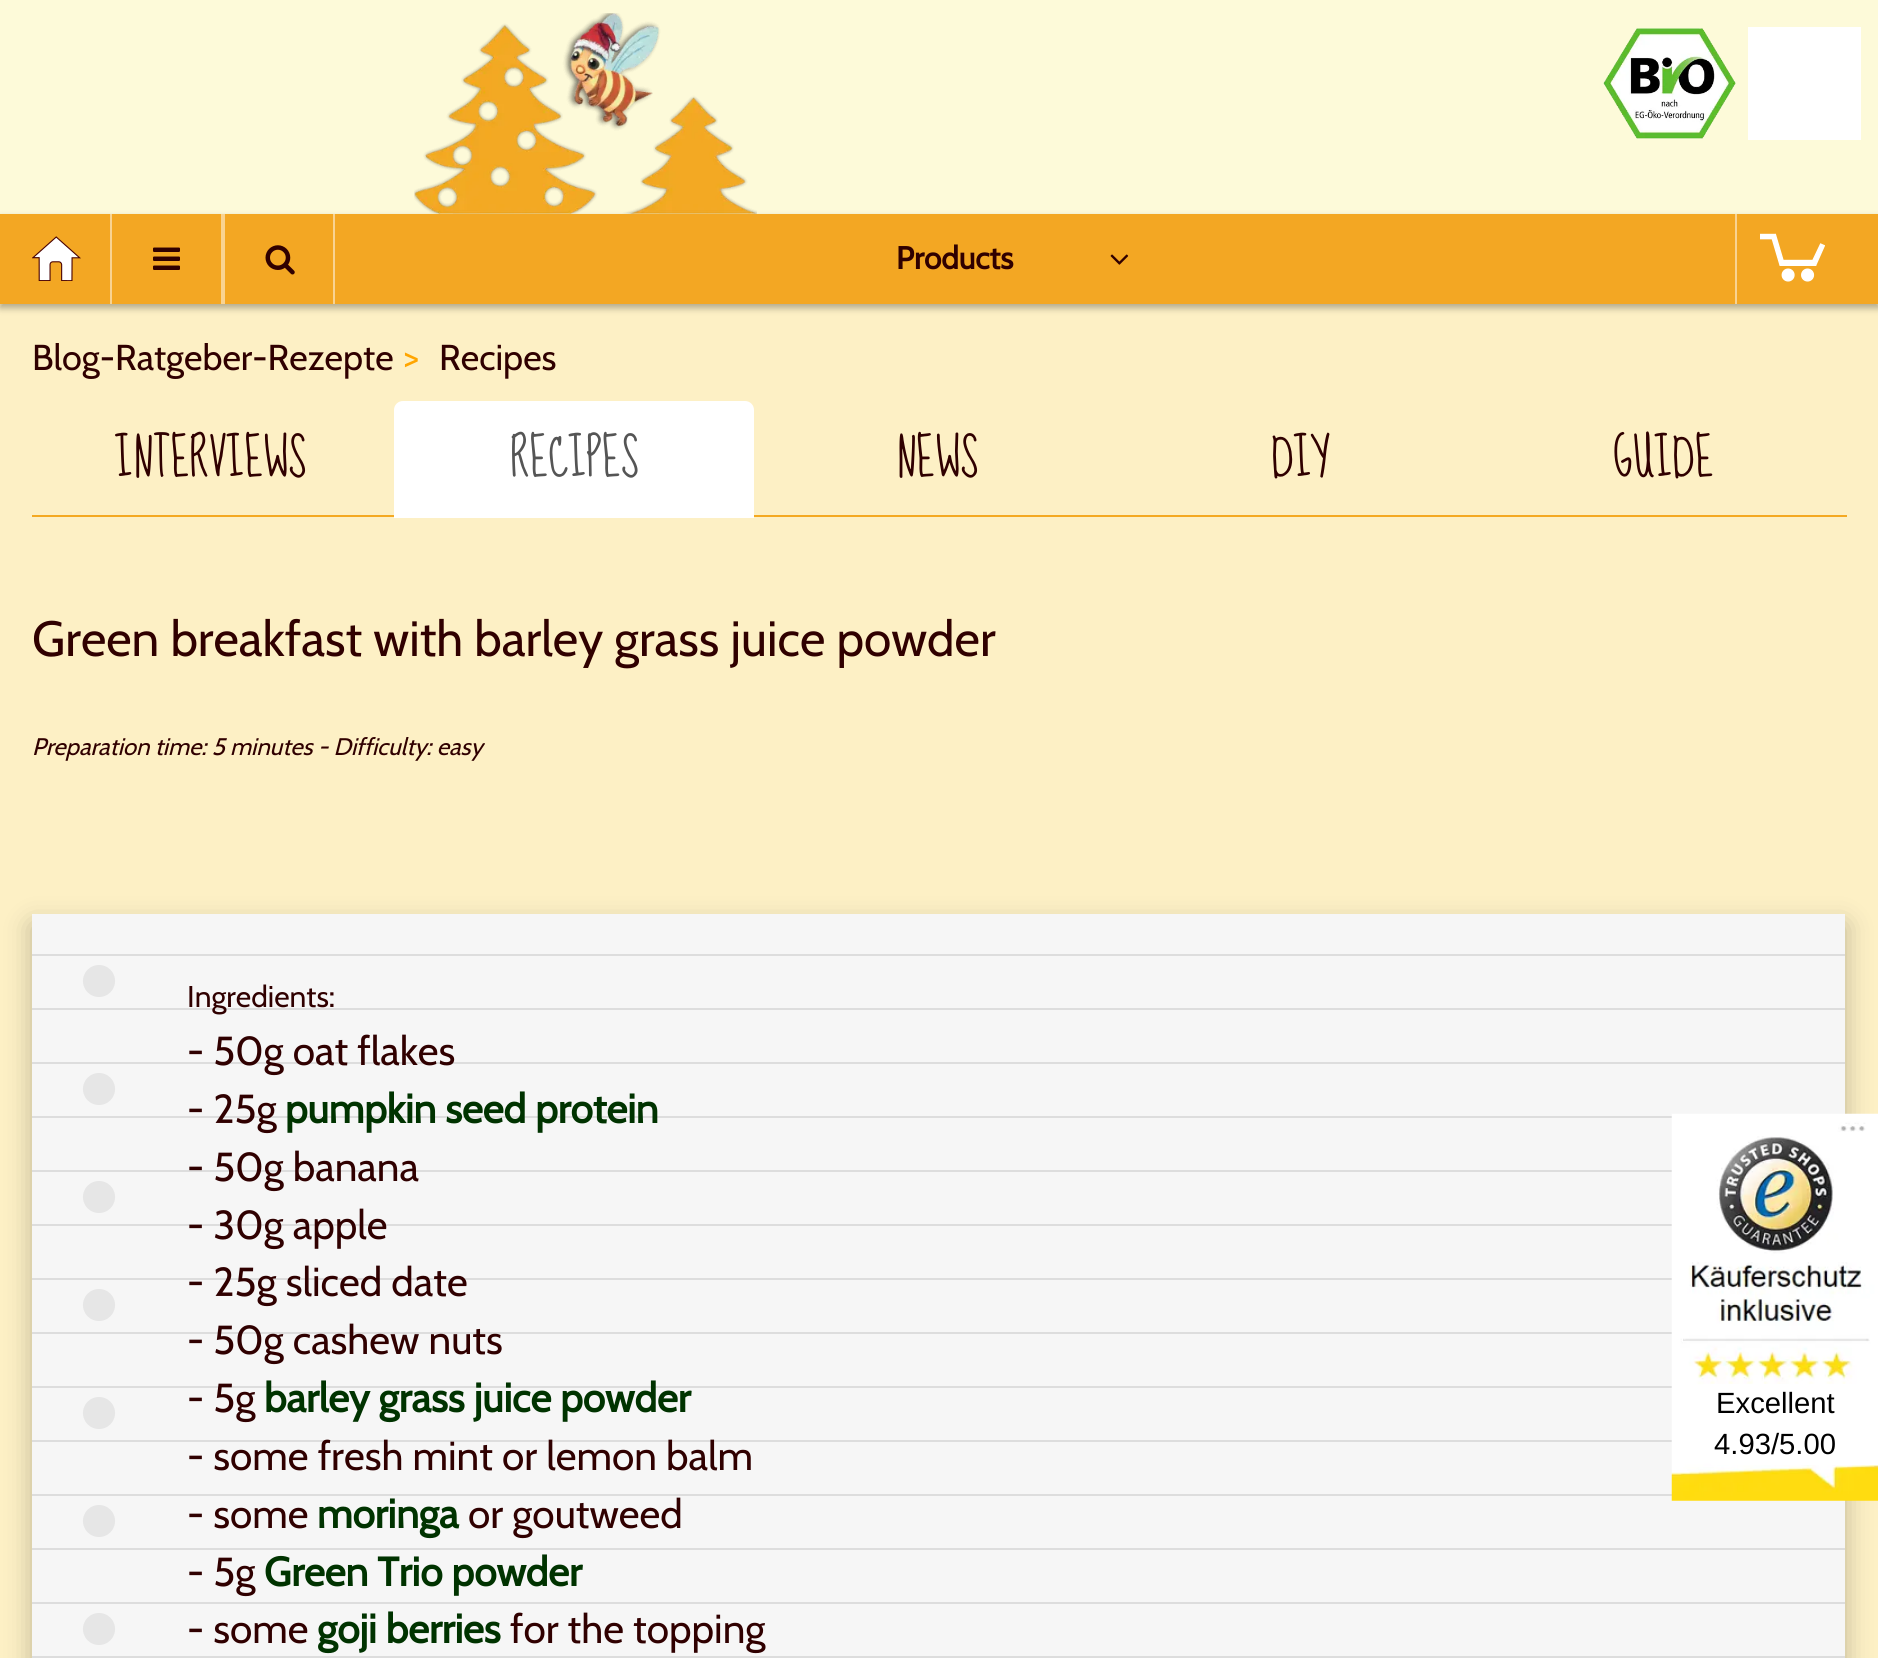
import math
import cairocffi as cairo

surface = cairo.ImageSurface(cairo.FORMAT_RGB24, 1878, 1658)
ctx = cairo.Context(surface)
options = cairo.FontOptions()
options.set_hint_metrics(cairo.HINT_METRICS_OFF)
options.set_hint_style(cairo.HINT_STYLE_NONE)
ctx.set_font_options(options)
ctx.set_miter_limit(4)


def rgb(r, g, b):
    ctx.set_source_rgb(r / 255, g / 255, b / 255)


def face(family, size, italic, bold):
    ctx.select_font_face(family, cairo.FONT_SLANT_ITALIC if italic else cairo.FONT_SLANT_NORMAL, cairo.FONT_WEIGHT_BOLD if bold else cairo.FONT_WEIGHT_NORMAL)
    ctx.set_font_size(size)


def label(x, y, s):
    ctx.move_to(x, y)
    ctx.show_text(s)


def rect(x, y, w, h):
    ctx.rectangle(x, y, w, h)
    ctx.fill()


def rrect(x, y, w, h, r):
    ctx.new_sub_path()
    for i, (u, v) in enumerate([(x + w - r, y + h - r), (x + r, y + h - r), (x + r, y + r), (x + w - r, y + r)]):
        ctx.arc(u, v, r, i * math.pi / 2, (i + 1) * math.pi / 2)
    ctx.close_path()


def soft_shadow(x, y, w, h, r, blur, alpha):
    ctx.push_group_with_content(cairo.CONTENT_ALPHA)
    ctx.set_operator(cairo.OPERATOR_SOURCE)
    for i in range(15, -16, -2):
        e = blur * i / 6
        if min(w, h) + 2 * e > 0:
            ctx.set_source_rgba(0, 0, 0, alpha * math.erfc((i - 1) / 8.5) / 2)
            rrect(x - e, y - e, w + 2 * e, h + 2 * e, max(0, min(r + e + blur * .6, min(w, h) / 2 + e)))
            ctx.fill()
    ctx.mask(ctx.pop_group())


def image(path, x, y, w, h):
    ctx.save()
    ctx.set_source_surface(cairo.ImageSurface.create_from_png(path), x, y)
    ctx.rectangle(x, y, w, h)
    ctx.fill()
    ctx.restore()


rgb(255, 255, 255)
ctx.paint()
gradient = cairo.LinearGradient(939, 0, 939, 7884)
gradient.add_color_stop_rgba(0, 0.992, 0.98, 0.851, 1)
gradient.add_color_stop_rgba(0.6, 1, 1, 0.843, 1)
ctx.set_source(gradient)
rect(0, 0, 1878, 214)
image('image0.png', 414, 13, 343, 201)
image('image1.png', 1603, 28, 133, 111)
rgb(255, 255, 255)
rect(1748, 27, 113, 113)
rgb(253, 240, 197)
rect(0, 304, 1878, 1354)
rgb(0, 0, 0)
soft_shadow(0, 218, 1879, 90, 0, 3.5, 0.3)
rgb(243, 167, 35)
rect(0, 214, 1878, 90)
image('image2.png', 32, 236, 49, 45)
rgb(249, 211, 145)
rect(110, 214, 2, 90)
image('image3.png', 153, 247, 27, 23)
rect(221, 214, 2, 90)
ctx.set_source_rgba(1, 1, 1, 0.5)
rect(223, 214, 2, 90)
image('image4.png', 265, 245, 30, 30)
rgb(249, 211, 145)
rect(333, 214, 2, 90)
face('Cabin', 31.5, 0, 1)
rgb(48, 0, 0)
label(896, 269, 'Products')
image('image5.png', 1110, 254, 19, 11)
rgb(249, 211, 145)
rect(1735, 214, 2, 90)
image('image6.png', 1760, 233, 65, 49)
face('Cabin', 36, 0, 0)
rgb(48, 0, 0)
label(32, 370, 'Blog-Ratgeber-Rezepte')
rgb(255, 165, 0)
label(404, 370, '>')
rgb(48, 0, 0)
label(439, 370, 'Recipes')
rgb(244, 169, 34)
rect(32, 515, 1815, 2)
face('Sue Ellen Francisco', 47.25, 0, 0)
rgb(48, 0, 0)
label(115, 476, 'INTERVIEWS')
rgb(255, 255, 255)
ctx.new_path()
ctx.move_to(403, 401)
ctx.line_to(745, 401)
ctx.curve_to(750, 401, 754, 405, 754, 410)
ctx.line_to(754, 518)
ctx.line_to(394, 518)
ctx.line_to(394, 410)
ctx.curve_to(394, 405, 398, 401, 403, 401)
ctx.close_path()
ctx.fill()
rgb(85, 85, 85)
label(510, 476, 'RECIPES')
rgb(48, 0, 0)
label(896, 476, 'NEWS')
label(1271, 476, 'DIY')
label(1613, 476, 'GUIDE')
face('Cabin', 49.5, 0, 0)
label(32, 656, 'Green breakfast with barley grass juice powder')
face('Cabin', 24, 1, 0)
label(32, 755, 'Preparation time: 5 minutes - Difficulty: easy')
rgb(0, 0, 0)
soft_shadow(32, 925, 1813, 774, 0, 13.5, 0.25)
rgb(246, 246, 246)
rect(32, 914, 1813, 742)
rgb(221, 221, 221)
rect(32, 954, 1813, 2)
rect(32, 1008, 1813, 2)
rect(32, 1062, 1813, 2)
rect(32, 1116, 1640, 2)
rect(32, 1170, 1640, 2)
rect(32, 1224, 1640, 2)
rect(32, 1278, 1640, 2)
rect(32, 1332, 1640, 2)
rect(32, 1386, 1640, 2)
rect(32, 1440, 1640, 2)
rect(32, 1494, 1640, 2)
rect(32, 1548, 1813, 2)
rect(32, 1602, 1813, 2)
rect(32, 1656, 1813, 2)
ctx.new_path()
ctx.move_to(99, 981)
ctx.line_to(99, 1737.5)
rgb(230, 230, 230)
ctx.set_line_width(32.1)
ctx.set_line_cap(cairo.LINE_CAP_ROUND)
ctx.set_dash([0, 108])
ctx.stroke()
face('Cabin', 30, 0, 0)
rgb(48, 0, 0)
label(187, 1007, 'Ingredients:')
face('Cabin', 40.5, 0, 0)
label(187, 1065, '- 50g oat flakes')
label(187, 1123, '- 25g')
face('Cabin', 40.5, 0, 1)
rgb(0, 51, 0)
label(285, 1123, 'pumpkin seed protein')
face('Cabin', 40.5, 0, 0)
rgb(48, 0, 0)
label(187, 1181, '- 50g banana')
label(187, 1239, '- 30g apple')
label(187, 1296, '- 25g sliced date')
label(187, 1354, '- 50g cashew nuts')
label(187, 1412, '- 5g')
face('Cabin', 40.5, 0, 1)
rgb(0, 51, 0)
label(264, 1412, 'barley grass juice powder')
face('Cabin', 40.5, 0, 0)
rgb(48, 0, 0)
label(187, 1470, '- some fresh mint or lemon balm')
label(187, 1528, '- some')
face('Cabin', 40.5, 0, 1)
rgb(0, 51, 0)
label(317, 1528, 'moringa')
face('Cabin', 40.5, 0, 0)
rgb(48, 0, 0)
label(468, 1528, 'or goutweed')
label(187, 1586, '- 5g')
face('Cabin', 40.5, 0, 1)
rgb(0, 51, 0)
label(264, 1586, 'Green Trio powder')
face('Cabin', 40.5, 0, 0)
rgb(48, 0, 0)
label(187, 1643, '- some')
face('Cabin', 40.5, 0, 1)
rgb(0, 51, 0)
label(317, 1643, 'goji berries')
face('Cabin', 40.5, 0, 0)
rgb(48, 0, 0)
label(510, 1643, 'for the topping')
image('image7.png', 1671, 1113, 207, 388)
rgb(255, 255, 255)
rect(1711, 1384, 167, 81)
face('Liberation Sans', 29.25, 0, 0)
rgb(0, 0, 0)
label(1716, 1413, 'Excellent')
label(1714, 1454, '4.93/5.00')
surface.write_to_png('render.png')
